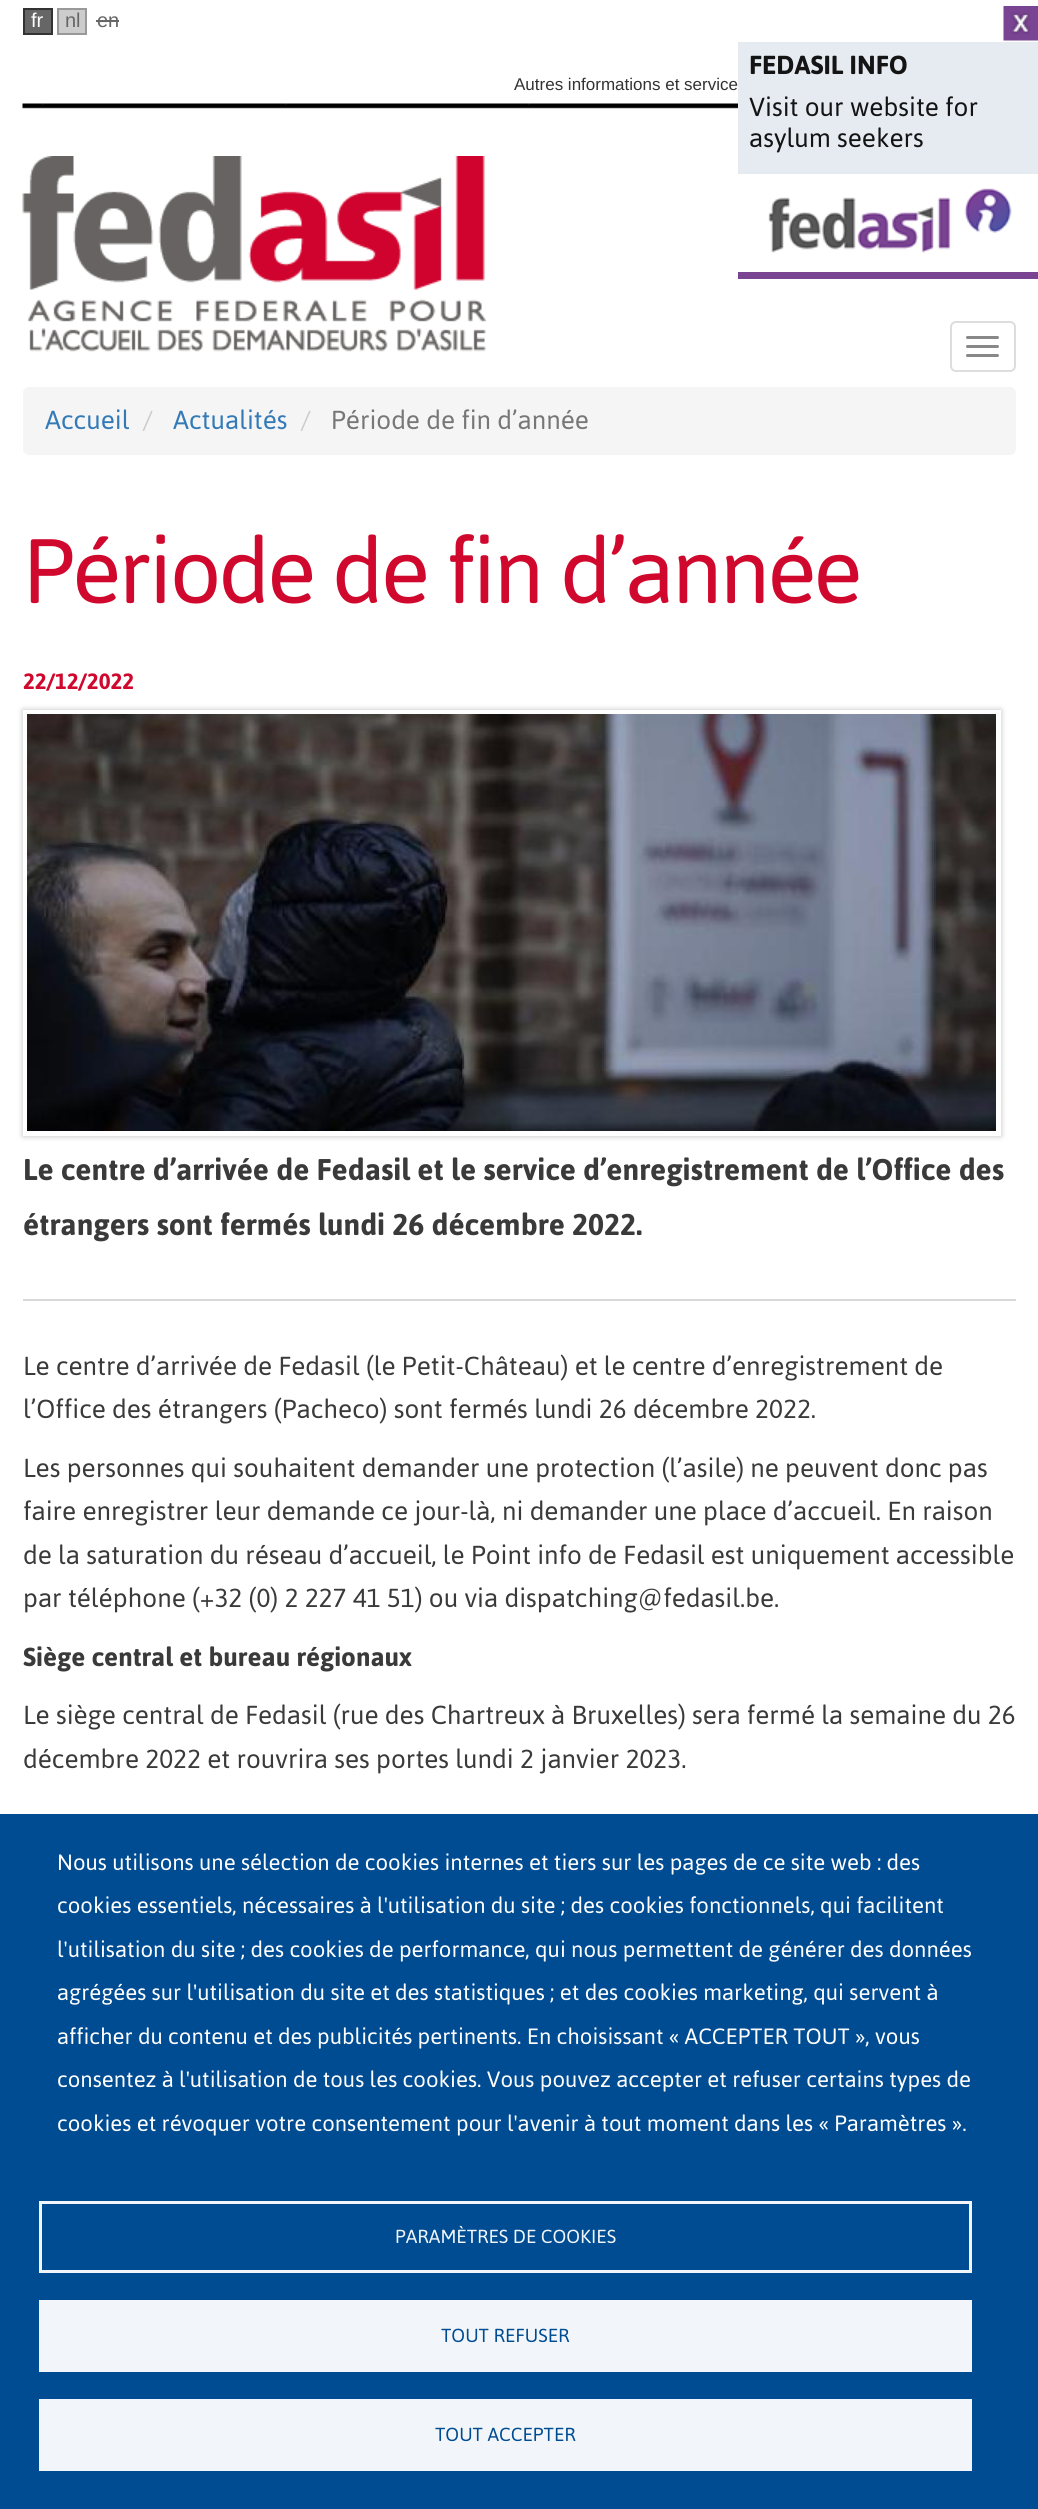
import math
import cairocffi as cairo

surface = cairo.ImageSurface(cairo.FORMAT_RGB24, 1038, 2509)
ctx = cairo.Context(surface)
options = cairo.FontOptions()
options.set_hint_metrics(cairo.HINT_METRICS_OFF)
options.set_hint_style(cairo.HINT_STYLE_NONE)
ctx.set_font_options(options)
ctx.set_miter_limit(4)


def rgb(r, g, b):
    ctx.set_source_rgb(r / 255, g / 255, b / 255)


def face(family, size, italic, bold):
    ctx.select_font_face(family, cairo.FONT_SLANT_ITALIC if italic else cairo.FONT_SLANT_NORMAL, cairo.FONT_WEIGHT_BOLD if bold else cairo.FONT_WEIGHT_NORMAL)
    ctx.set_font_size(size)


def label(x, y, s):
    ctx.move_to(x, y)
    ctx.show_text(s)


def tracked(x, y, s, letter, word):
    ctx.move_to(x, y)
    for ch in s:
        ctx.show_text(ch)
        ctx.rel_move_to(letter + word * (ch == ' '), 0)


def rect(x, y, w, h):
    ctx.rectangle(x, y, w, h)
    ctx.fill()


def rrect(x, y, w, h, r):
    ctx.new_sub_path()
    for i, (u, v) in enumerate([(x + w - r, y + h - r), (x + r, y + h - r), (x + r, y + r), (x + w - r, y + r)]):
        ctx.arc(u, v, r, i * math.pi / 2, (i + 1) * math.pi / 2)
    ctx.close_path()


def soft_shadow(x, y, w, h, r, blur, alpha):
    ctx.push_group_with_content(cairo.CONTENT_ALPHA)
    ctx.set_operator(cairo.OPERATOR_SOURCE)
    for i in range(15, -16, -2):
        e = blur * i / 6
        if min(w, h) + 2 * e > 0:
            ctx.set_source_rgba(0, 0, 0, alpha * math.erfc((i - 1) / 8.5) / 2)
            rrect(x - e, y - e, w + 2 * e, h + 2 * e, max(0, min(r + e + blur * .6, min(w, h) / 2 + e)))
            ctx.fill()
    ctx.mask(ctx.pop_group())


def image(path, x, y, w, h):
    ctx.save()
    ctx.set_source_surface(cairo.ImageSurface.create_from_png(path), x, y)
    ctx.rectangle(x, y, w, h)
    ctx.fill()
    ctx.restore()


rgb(255, 255, 255)
ctx.paint()
rgb(102, 102, 102)
ctx.rectangle(24, 9, 28, 25)
ctx.fill_preserve()
rgb(51, 51, 51)
ctx.stroke()
face('Liberation Sans', 20, 0, 0)
rgb(255, 255, 255)
label(31, 27, 'fr')
rgb(204, 204, 204)
ctx.rectangle(58, 9, 28, 25)
ctx.fill_preserve()
rgb(153, 153, 153)
ctx.stroke()
rgb(102, 102, 102)
label(65, 27, 'nl')
label(97, 27, 'en')
rect(96, 20, 23, 2)
rgb(230, 235, 241)
rect(738, 42, 300, 132)
rgb(121, 68, 146)
rect(738, 272, 300, 7)
image('image0.png', 1003, 6, 35, 35)
face('Jaldi', 30, 0, 1)
rgb(20, 20, 20)
label(749, 74, 'FEDASIL INFO')
face('Jaldi', 30, 0, 0)
label(749, 116, 'Visit our website for')
label(749, 147, 'asylum seekers')
image('image1.png', 768, 188, 244, 65)
image('image2.png', 22, 103, 716, 6)
face('Liberation Sans', 17, 0, 0)
rgb(51, 51, 51)
label(514, 90, 'Autres informations et service')
image('image3.png', 22, 156, 464, 196)
rrect(951, 322, 64, 49, 5)
rgb(221, 221, 221)
ctx.stroke()
rgb(136, 136, 136)
rrect(966, 336, 33, 3, 1.5)
ctx.fill()
rrect(966, 345, 33, 3, 1.5)
ctx.fill()
rrect(966, 354, 33, 3, 1.5)
ctx.fill()
rgb(245, 245, 245)
rrect(23, 387, 993, 68, 6)
ctx.fill()
face('Jaldi', 30, 0, 0)
rgb(51, 122, 183)
label(45, 429, 'Accueil')
rgb(204, 204, 204)
label(143, 429, '/')
rgb(51, 122, 183)
label(173, 429, 'Actualités')
rgb(204, 204, 204)
label(301, 429, '/')
rgb(119, 119, 119)
label(331, 429, 'Période de fin d’année')
face('Jaldi', 105, 0, 0)
rgb(208, 8, 45)
tracked(23, 603, 'Période de fin d’année', -3, 0)
face('Jaldi', 25.5, 0, 1)
label(23, 689, '22/12/2022')
rgb(0, 0, 0)
soft_shadow(23, 710, 978, 426, 0, 3, 0.25)
ctx.rectangle(25.5, 712.5, 973, 421)
rgb(255, 255, 255)
ctx.set_line_width(5)
ctx.stroke()
image('image4.png', 27, 714, 969, 417)
rgb(216, 216, 216)
rect(23, 1299, 993, 2)
face('Jaldi', 34.5, 0, 1)
rgb(58, 58, 58)
label(23, 1180, 'Le centre d’arrivée de Fedasil et le service d’enregistrement de l’Office des')
label(23, 1235, 'étrangers sont fermés lundi 26 décembre 2022.')
face('Jaldi', 30, 0, 0)
label(23, 1375, 'Le centre d’arrivée de Fedasil (le Petit-Château) et le centre d’enregistrement de')
label(23, 1418, 'l’Office des étrangers (Pacheco) sont fermés lundi 26 décembre 2022.')
label(23, 1477, 'Les personnes qui souhaitent demander une protection (l’asile) ne peuvent donc pas')
label(23, 1520, 'faire enregistrer leur demande ce jour-là, ni demander une place d’accueil. En raison')
label(23, 1564, 'de la saturation du réseau d’accueil, le Point info de Fedasil est uniquement accessible')
label(23, 1607, 'par téléphone (+32 (0) 2 227 41 51) ou via dispatching@fedasil.be.')
face('Jaldi', 30, 0, 1)
label(23, 1666, 'Siège central et bureau régionaux')
face('Jaldi', 30, 0, 0)
label(23, 1724, 'Le siège central de Fedasil (rue des Chartreux à Bruxelles) sera fermé la semaine du 26')
label(23, 1768, 'décembre 2022 et rouvrira ses portes lundi 2 janvier 2023.')
rgb(0, 76, 147)
rect(0, 1814, 1038, 695)
face('Jaldi', 25.5, 0, 0)
rgb(255, 255, 255)
label(57, 1870, 'Nous utilisons une sélection de cookies internes et tiers sur les pages de ce site web : des')
label(57, 1913, 'cookies essentiels, nécessaires à l\'utilisation du site ; des cookies fonctionnels, qui facilitent')
label(57, 1957, 'l\'utilisation du site ; des cookies de performance, qui nous permettent de générer des données')
label(57, 2000, 'agrégées sur l\'utilisation du site et des statistiques ; et des cookies marketing, qui servent à')
label(57, 2044, 'afficher du contenu et des publicités pertinents. En choisissant « ACCEPTER TOUT », vous')
label(57, 2087, 'consentez à l\'utilisation de tous les cookies. Vous pouvez accepter et refuser certains types de')
label(57, 2131, 'cookies et révoquer votre consentement pour l\'avenir à tout moment dans les « Paramètres ».')
ctx.rectangle(40.5, 2202.5, 930, 69)
rgb(242, 246, 250)
ctx.set_line_width(3)
ctx.stroke()
face('Jaldi', 21.75, 0, 0)
label(395, 2243, 'PARAMÈTRES DE COOKIES')
rect(39, 2300, 933, 72)
rgb(0, 76, 147)
label(441, 2342, 'TOUT REFUSER')
rgb(242, 246, 250)
rect(39, 2399, 933, 72)
rgb(0, 76, 147)
label(435, 2441, 'TOUT ACCEPTER')
surface.write_to_png('render.png')
